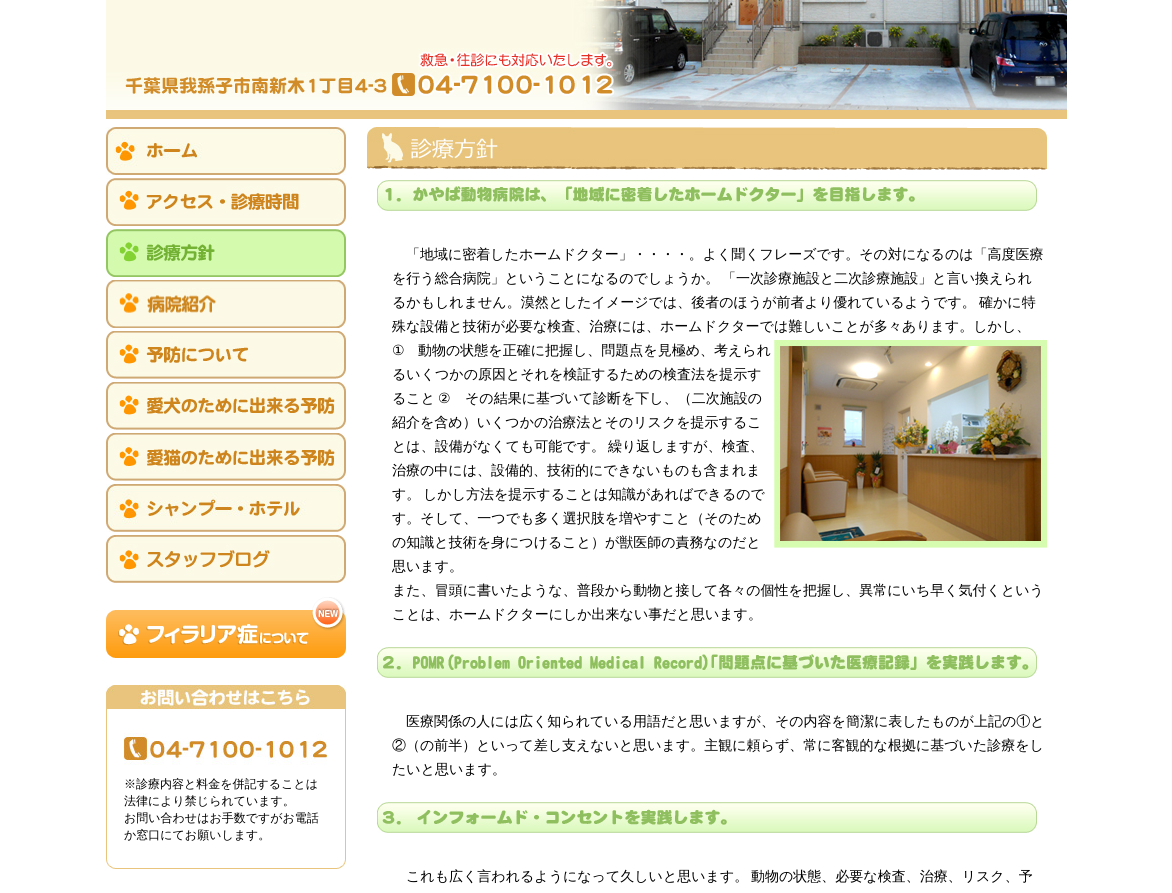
import math
import cairocffi as cairo

surface = cairo.ImageSurface(cairo.FORMAT_RGB24, 1172, 893)
ctx = cairo.Context(surface)
options = cairo.FontOptions()
options.set_hint_metrics(cairo.HINT_METRICS_OFF)
options.set_hint_style(cairo.HINT_STYLE_NONE)
ctx.set_font_options(options)
ctx.set_miter_limit(4)


def rgb(r, g, b):
    ctx.set_source_rgb(r / 255, g / 255, b / 255)


def face(family, size, italic, bold):
    ctx.select_font_face(family, cairo.FONT_SLANT_ITALIC if italic else cairo.FONT_SLANT_NORMAL, cairo.FONT_WEIGHT_BOLD if bold else cairo.FONT_WEIGHT_NORMAL)
    ctx.set_font_size(size)


def label(x, y, s):
    ctx.move_to(x, y)
    ctx.show_text(s)


def image(path, x, y, w, h):
    ctx.save()
    ctx.set_source_surface(cairo.ImageSurface.create_from_png(path), x, y)
    ctx.rectangle(x, y, w, h)
    ctx.fill()
    ctx.restore()


rgb(255, 255, 255)
ctx.paint()
image('image0.png', 106, 0, 469, 119)
image('image1.png', 575, 0, 492, 119)
image('image2.png', 106, 127, 240, 48)
image('image3.png', 106, 178, 240, 48)
image('image4.png', 106, 229, 240, 48)
image('image5.png', 106, 280, 240, 48)
image('image6.png', 106, 331, 240, 48)
image('image7.png', 106, 382, 240, 48)
image('image8.png', 106, 433, 240, 48)
image('image9.png', 106, 484, 240, 48)
image('image10.png', 106, 535, 240, 48)
image('image11.png', 106, 597, 240, 61)
image('image12.png', 106, 685, 240, 24)
image('image13.png', 106, 709, 240, 160)
image('image14.png', 124, 733, 203, 32)
face('WenQuanYi Zen Hei Medium', 12, 0, 0)
rgb(0, 0, 0)
label(124, 788, '※診療内容と料金を併記することは')
label(124, 805, '法律により禁じられています。')
label(124, 822, 'お問い合わせはお手数ですがお電話')
label(124, 839, 'か窓口にてお願いします。')
image('image15.png', 367, 127, 680, 43)
image('image16.png', 377, 180, 660, 31)
face('WenQuanYi Zen Hei Medium', 14, 0, 0)
label(406, 259, '「地域に密着したホームドクター」・・・・。よく聞くフレーズです。その対になるのは「高度医療')
label(392, 283, 'を行う総合病院」ということになるのでしょうか。')
label(722, 283, '「一次診療施設と二次診療施設」と言い換えられ')
label(392, 307, 'るかもしれません。漠然としたイメージでは、後者のほうが前者より優れているようです。')
label(979, 307, '確かに特')
label(392, 331, '殊な設備と技術が必要な検査、治療には、ホームドクターでは難しいことが多々あります。しかし、')
face('DejaVu Sans', 14, 0, 0)
label(392, 355, '①')
face('WenQuanYi Zen Hei Medium', 14, 0, 0)
label(418, 355, '動物の状態を正確に把握し、問題点を見極め、考えられ')
image('image17.png', 774, 340, 273, 208)
label(392, 379, 'るいくつかの原因とそれを検証するための検査法を提示す')
label(392, 403, 'ること')
face('DejaVu Sans', 14, 0, 0)
label(438, 403, '②')
face('WenQuanYi Zen Hei Medium', 14, 0, 0)
label(465, 403, 'その結果に基づいて診断を下し、（二次施設の')
label(392, 427, '紹介を含め）いくつかの治療法とそのリスクを提示するこ')
label(392, 451, 'とは、設備がなくても可能です。')
label(608, 451, '繰り返しますが、検査、')
label(392, 475, '治療の中には、設備的、技術的にできないものも含まれま')
label(392, 499, 'す。')
label(423, 499, 'しかし方法を提示することは知識があればできるので')
label(392, 523, 'す。そして、一つでも多く選択肢を増やすこと（そのため')
label(392, 547, 'の知識と技術を身につけること）が獣医師の責務なのだと')
label(392, 571, '思います。')
label(392, 595, 'また、冒頭に書いたような、普段から動物と接して各々の個性を把握し、異常にいち早く気付くという')
label(392, 619, 'ことは、ホームドクターにしか出来ない事だと思います。')
image('image18.png', 377, 647, 660, 31)
label(406, 726, '医療関係の人には広く知られている用語だと思いますが、その内容を簡潔に表したものが上記の①と')
label(392, 750, '②（の前半）といって差し支えないと思います。主観に頼らず、常に客観的な根拠に基づいた診療をし')
label(392, 774, 'たいと思います。')
image('image19.png', 377, 802, 660, 31)
label(406, 881, 'これも広く言われるようになって久しいと思います。')
label(751, 881, '動物の状態、必要な検査、治療、リスク、予')
surface.write_to_png('render.png')
